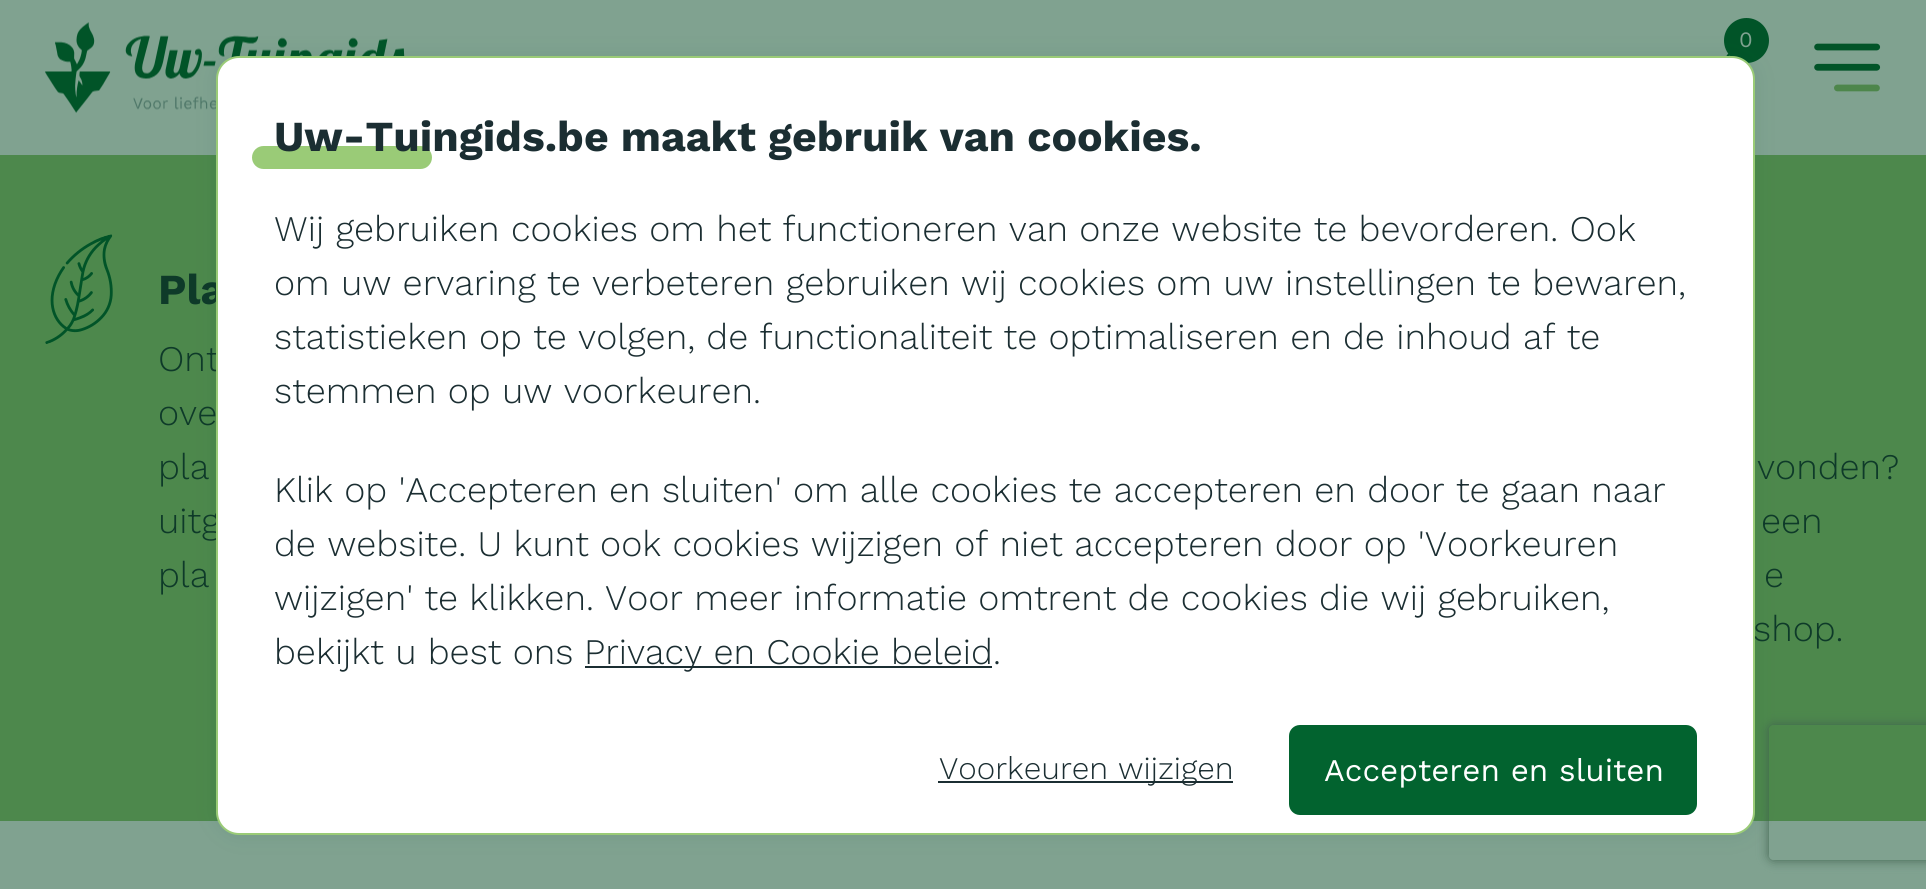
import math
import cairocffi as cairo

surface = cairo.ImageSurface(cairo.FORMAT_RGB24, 1926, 889)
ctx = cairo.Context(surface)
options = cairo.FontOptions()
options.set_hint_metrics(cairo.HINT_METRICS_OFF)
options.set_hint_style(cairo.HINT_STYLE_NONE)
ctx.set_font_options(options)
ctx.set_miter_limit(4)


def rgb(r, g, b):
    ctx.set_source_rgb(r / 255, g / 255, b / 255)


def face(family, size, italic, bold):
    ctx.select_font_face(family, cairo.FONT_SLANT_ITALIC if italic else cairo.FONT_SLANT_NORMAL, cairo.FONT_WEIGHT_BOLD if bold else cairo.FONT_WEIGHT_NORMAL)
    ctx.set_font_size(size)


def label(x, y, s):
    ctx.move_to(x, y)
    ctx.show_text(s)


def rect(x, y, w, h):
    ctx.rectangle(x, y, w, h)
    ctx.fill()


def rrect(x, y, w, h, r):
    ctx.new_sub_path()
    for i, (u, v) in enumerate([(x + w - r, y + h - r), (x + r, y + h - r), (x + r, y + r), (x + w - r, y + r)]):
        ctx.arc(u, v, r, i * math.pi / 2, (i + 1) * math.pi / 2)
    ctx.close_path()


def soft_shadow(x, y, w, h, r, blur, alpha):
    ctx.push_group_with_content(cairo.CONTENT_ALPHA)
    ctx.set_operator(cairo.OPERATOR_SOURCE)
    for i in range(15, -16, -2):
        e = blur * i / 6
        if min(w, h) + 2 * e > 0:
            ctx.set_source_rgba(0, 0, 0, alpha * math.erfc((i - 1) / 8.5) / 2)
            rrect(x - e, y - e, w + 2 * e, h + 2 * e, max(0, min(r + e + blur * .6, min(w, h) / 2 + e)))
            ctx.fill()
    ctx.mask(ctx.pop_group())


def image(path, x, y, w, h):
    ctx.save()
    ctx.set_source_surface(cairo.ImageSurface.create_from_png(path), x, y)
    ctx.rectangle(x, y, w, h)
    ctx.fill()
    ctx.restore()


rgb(128, 162, 144)
ctx.paint()
image('image0.png', 45, 22, 360, 91)
image('image1.png', 1726, 53, 5, 3)
rgb(1, 84, 40)
ctx.arc(1746.5, 40.5, 22.5, 0, 2 * math.pi)
ctx.fill()
face('Work Sans', 22, 0, 0)
rgb(128, 162, 144)
label(1739, 47, '0')
image('image2.png', 1814, 43, 67, 49)
rgb(77, 136, 76)
rect(0, 155, 1926, 666)
rgb(2, 99, 47)
soft_shadow(216, 56, 1539, 779, 23, 11, 0.1)
face('Work Sans', 42.75, 0, 1)
rgb(14, 58, 41)
label(158, 304, 'Pla')
face('Work Sans Light', 36, 0, 0)
label(158, 371, 'Ont')
label(158, 533, 'uitg')
label(1753, 641, 'shop.')
ctx.save()
ctx.set_fill_rule(cairo.FILL_RULE_EVEN_ODD)
ctx.new_path()
ctx.move_to(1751, 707)
ctx.line_to(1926, 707)
ctx.line_to(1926, 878)
ctx.line_to(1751, 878)
ctx.close_path()
ctx.move_to(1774, 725)
ctx.line_to(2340, 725)
ctx.curve_to(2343, 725, 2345, 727, 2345, 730)
ctx.line_to(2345, 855)
ctx.curve_to(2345, 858, 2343, 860, 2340, 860)
ctx.line_to(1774, 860)
ctx.curve_to(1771, 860, 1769, 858, 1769, 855)
ctx.line_to(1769, 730)
ctx.curve_to(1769, 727, 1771, 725, 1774, 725)
ctx.close_path()
ctx.clip()
rgb(64, 99, 80)
soft_shadow(1769, 725, 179, 135, 5, 5.5, 1)
ctx.restore()
rgb(255, 255, 255)
rrect(217, 57, 1537, 777, 22)
ctx.fill_preserve()
rgb(154, 203, 119)
ctx.stroke()
rrect(252, 146, 180, 23, 11.5)
ctx.fill()
face('Work Sans', 42.75, 0, 1)
rgb(27, 46, 50)
label(274, 151, 'Uw-Tuingids.be maakt gebruik van cookies.')
face('Work Sans Light', 36, 0, 0)
label(274, 241, 'Wij gebruiken cookies om het functioneren van onze website te bevorderen. Ook')
label(274, 295, 'om uw ervaring te verbeteren gebruiken wij cookies om uw instellingen te bewaren,')
label(274, 349, 'statistieken op te volgen, de functionaliteit te optimaliseren en de inhoud af te')
label(274, 403, 'stemmen op uw voorkeuren.')
label(274, 502, 'Klik op \'Accepteren en sluiten\' om alle cookies te accepteren en door te gaan naar')
label(274, 556, 'de website. U kunt ook cookies wijzigen of niet accepteren door op \'Voorkeuren')
label(274, 610, 'wijzigen\' te klikken. Voor meer informatie omtrent de cookies die wij gebruiken,')
label(274, 664, 'bekijkt u best ons')
rect(585, 666, 407, 2)
label(584, 664, 'Privacy en Cookie beleid.')
rect(938, 781, 295, 2)
face('Work Sans Light', 31.5, 0, 0)
label(939, 779, 'Voorkeuren wijzigen')
rgb(2, 99, 47)
rrect(1289, 725, 408, 90, 11)
ctx.fill()
face('Work Sans', 31.5, 0, 0)
rgb(255, 255, 255)
label(1324, 781, 'Accepteren en sluiten')
image('image3.png', 45, 234, 68, 110)
face('Work Sans Light', 36, 0, 0)
rgb(14, 58, 41)
label(158, 425, 'ove')
label(158, 479, 'pla')
label(158, 587, 'pla')
label(1757, 479, 'vonden?')
label(1761, 533, 'een')
label(1764, 587, 'e')
surface.write_to_png('render.png')
